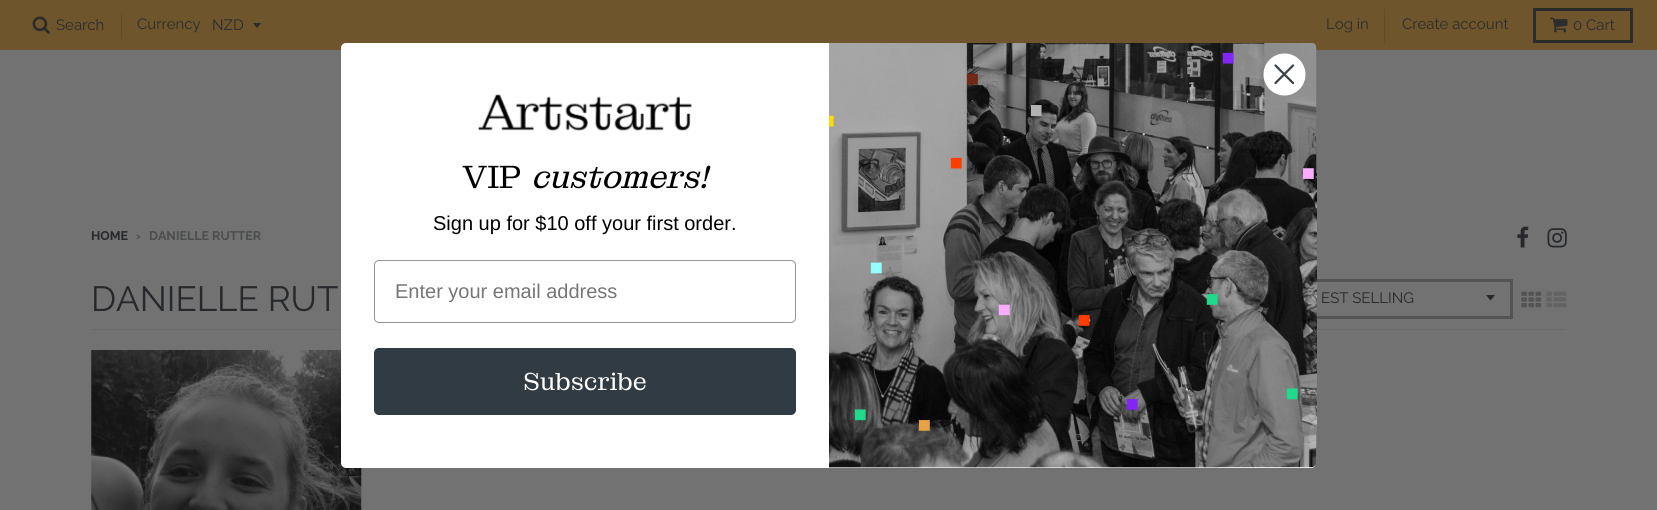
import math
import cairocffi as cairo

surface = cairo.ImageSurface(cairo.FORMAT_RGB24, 1657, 510)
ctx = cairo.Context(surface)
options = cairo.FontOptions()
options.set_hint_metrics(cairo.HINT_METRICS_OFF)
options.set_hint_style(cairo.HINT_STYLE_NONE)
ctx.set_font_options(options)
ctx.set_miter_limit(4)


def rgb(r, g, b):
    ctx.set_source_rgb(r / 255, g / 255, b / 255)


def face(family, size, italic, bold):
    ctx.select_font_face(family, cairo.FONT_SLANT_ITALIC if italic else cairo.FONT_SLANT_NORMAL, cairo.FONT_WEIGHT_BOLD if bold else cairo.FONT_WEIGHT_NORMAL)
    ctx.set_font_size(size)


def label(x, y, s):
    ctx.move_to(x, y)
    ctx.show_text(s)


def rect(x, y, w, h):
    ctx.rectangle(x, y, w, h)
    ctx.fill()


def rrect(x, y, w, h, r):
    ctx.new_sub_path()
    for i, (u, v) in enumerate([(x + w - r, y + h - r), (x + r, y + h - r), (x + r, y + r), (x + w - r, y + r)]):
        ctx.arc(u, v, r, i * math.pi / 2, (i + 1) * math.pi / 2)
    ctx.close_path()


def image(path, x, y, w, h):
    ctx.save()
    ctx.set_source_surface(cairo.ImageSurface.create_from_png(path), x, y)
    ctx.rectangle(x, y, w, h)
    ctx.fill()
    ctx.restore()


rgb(114, 114, 114)
ctx.paint()
rgb(110, 85, 44)
rect(0, 0, 1657, 50)
image('image0.png', 32, 16, 18, 18)
face('Raleway', 15, 0, 0)
rgb(44, 44, 44)
label(56, 30, 'Search')
rgb(97, 77, 44)
rect(121, 13, 1, 25)
rgb(44, 44, 44)
label(137, 29, 'Currency')
ctx.save()
ctx.rectangle(253, 23, 10, 6)
ctx.clip()
ctx.new_path()
ctx.move_to(252.5, 22.5)
ctx.line_to(257, 28)
ctx.line_to(261.5, 22.5)
ctx.close_path()
ctx.fill()
ctx.restore()
label(212, 30, 'NZD')
rgb(97, 77, 44)
rect(1384, 9, 1, 34)
rgb(44, 44, 44)
label(1326, 29, 'Log in')
label(1402, 29, 'Create account')
ctx.rectangle(1534.5, 9.5, 97, 32)
ctx.set_line_width(3)
ctx.stroke()
image('image1.png', 1550, 17, 18, 16)
label(1573, 30, '0 Cart')
face('Raleway', 12.5, 0, 1)
rgb(38, 40, 43)
label(91, 240, 'HOME')
rgb(76, 77, 78)
label(136, 240, '›')
label(149, 240, 'DANIELLE RUTTER')
image('image2.png', 1517, 226, 12, 22)
image('image3.png', 1547, 228, 20, 20)
rgb(106, 106, 107)
rect(91, 329, 1475, 1)
face('Raleway', 35, 0, 0)
rgb(38, 40, 43)
label(91, 311, 'DANIELLE RUT')
ctx.new_path()
ctx.move_to(1486, 295)
ctx.line_to(1490.5, 300.5)
ctx.line_to(1495, 295)
ctx.close_path()
ctx.fill()
ctx.rectangle(1296.5, 280.5, 215, 37)
rgb(84, 84, 85)
ctx.stroke()
face('Raleway', 15, 0, 0)
rgb(38, 40, 43)
label(1321, 303, 'EST SELLING')
image('image4.png', 1521, 291, 21, 17)
image('image5.png', 1546, 291, 21, 17)
image('image6.png', 91, 350, 271, 160)
rgb(255, 255, 255)
rrect(341, 43, 975, 425, 5)
ctx.fill()
image('image8.png', 829, 43, 488, 425)
ctx.arc(1284.5, 74.5, 21, 0, 2 * math.pi)
ctx.fill()
ctx.new_path()
ctx.move_to(1275.5, 65.5)
ctx.line_to(1293, 83)
ctx.move_to(1275.5, 83)
ctx.line_to(1293, 65.5)
ctx.close_path()
rgb(55, 63, 71)
ctx.set_line_width(2.2)
ctx.set_line_cap(cairo.LINE_CAP_ROUND)
ctx.set_line_join(cairo.LINE_JOIN_ROUND)
ctx.stroke()
image('image7.png', 478, 94, 214, 37)
face('Montagu Slab', 32.5, 0, 0)
rgb(0, 0, 0)
label(462, 188, 'VIP')
face('Montagu Slab', 32.5, 1, 0)
label(531, 188, 'customers!')
face('Liberation Sans', 20, 0, 0)
label(433, 230, 'Sign up for $10 off your first order.')
rrect(374.5, 260.5, 421, 62, 4.5)
rgb(148, 149, 150)
ctx.set_line_width(1)
ctx.set_line_cap(cairo.LINE_CAP_BUTT)
ctx.set_line_join(cairo.LINE_JOIN_MITER)
ctx.stroke()
rgb(118, 118, 118)
label(395, 298, 'Enter your email address')
rgb(48, 59, 67)
rrect(374, 348, 422, 67, 5)
ctx.fill()
face('Montagu Slab', 25, 0, 0)
rgb(255, 255, 255)
label(523, 390, 'Subscribe')
surface.write_to_png('render.png')
